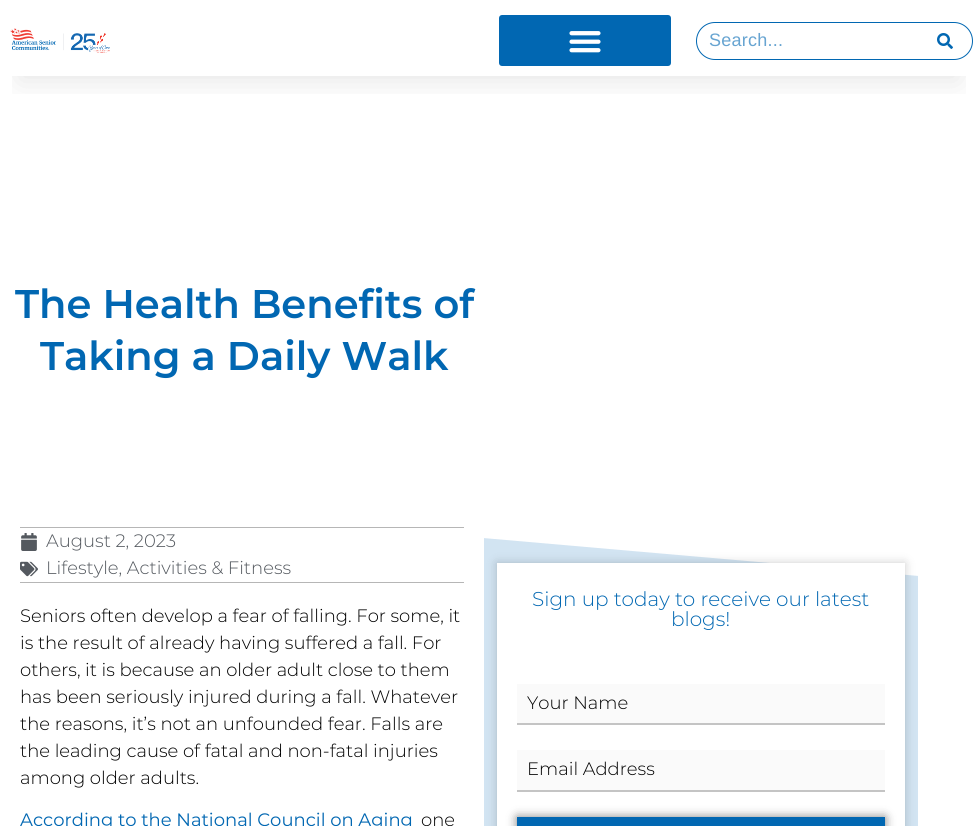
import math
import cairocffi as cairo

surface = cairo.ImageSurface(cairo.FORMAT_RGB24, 978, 826)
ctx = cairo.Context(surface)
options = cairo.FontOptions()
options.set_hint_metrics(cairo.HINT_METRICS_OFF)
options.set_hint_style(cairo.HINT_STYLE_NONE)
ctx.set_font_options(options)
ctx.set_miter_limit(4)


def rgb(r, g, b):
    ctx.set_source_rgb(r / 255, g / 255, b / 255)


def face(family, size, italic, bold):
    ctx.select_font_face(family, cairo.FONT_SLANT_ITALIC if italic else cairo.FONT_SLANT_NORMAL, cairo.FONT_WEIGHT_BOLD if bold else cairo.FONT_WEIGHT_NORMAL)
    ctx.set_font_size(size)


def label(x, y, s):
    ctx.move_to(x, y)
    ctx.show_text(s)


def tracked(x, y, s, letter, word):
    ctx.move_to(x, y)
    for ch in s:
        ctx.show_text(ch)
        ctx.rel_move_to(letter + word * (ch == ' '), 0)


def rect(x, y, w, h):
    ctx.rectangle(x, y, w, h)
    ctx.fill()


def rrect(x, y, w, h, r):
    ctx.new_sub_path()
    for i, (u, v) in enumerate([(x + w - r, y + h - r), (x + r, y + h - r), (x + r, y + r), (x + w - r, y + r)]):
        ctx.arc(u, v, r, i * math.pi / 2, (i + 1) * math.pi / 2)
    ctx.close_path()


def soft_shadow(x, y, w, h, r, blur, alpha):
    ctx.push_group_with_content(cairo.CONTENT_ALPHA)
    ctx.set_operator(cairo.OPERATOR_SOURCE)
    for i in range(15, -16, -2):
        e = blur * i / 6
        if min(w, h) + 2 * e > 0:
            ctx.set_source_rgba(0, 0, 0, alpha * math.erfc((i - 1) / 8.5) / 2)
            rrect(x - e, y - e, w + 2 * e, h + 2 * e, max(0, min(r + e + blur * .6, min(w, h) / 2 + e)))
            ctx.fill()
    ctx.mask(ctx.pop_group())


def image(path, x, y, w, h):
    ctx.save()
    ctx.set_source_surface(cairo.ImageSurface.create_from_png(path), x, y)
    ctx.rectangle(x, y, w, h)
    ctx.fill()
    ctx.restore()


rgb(255, 255, 255)
ctx.paint()
ctx.save()
ctx.rectangle(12, 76, 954, 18)
ctx.clip()
rgb(0, 0, 0)
soft_shadow(19, 43, 940, 38, 0, 15, 0.1)
ctx.restore()
image('image0.png', 10, 28, 100, 25)
rgb(1, 103, 178)
rrect(499, 15, 172, 51, 3)
ctx.fill()
image('image1.png', 569, 31, 32, 22)
rrect(696.5, 22.5, 276, 37, 18.5)
ctx.set_line_width(1)
ctx.stroke()
face('Liberation Sans', 18, 0, 0)
rgb(103, 164, 209)
tracked(709, 46, 'Search...', 0.25, 0)
image('image2.png', 937, 33, 16, 16)
face('Montserrat SemiBold', 40, 0, 0)
rgb(1, 103, 178)
label(15, 318, 'The Health Benefits of')
label(40, 370, 'Taking a Daily Walk')
rgb(182, 182, 182)
rect(20, 527, 444, 1)
rect(20, 582, 444, 1)
image('image3.png', 21, 533, 16, 18)
face('Montserrat Light', 18, 0, 0)
rgb(84, 89, 95)
label(46, 547, 'August 2, 2023')
image('image4.png', 20, 561, 18, 16)
label(46, 574, 'Lifestyle, Activities & Fitness')
rgb(0, 0, 0)
label(20, 622, 'Seniors often develop a fear of falling. For some, it')
label(20, 649, 'is the result of already having suffered a fall. For')
label(20, 676, 'others, it is because an older adult close to them')
label(20, 703, 'has been seriously injured during a fall. Whatever')
label(20, 730, 'the reasons, it’s not an unfounded fear. Falls are')
label(20, 757, 'the leading cause of fatal and non-fatal injuries')
label(20, 784, 'among older adults.')
face('Montserrat', 18, 0, 0)
rgb(1, 103, 178)
label(20, 826, 'According to the National Council on Aging')
face('Montserrat Light', 18, 0, 0)
rgb(0, 0, 0)
label(421, 826, 'one')
rgb(210, 228, 242)
rect(484, 538, 434, 288)
ctx.save()
ctx.rectangle(484, 536, 434, 40)
ctx.clip()
rgb(255, 255, 255)
ctx.new_path()
ctx.move_to(483, 538)
ctx.line_to(483, 536)
ctx.line_to(919, 536)
ctx.line_to(919, 576)
ctx.close_path()
ctx.fill()
ctx.restore()
rgb(0, 0, 0)
soft_shadow(497, 563, 408, 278, 0, 5, 0.2)
rgb(255, 255, 255)
rect(497, 563, 408, 263)
face('Montserrat Light', 20, 0, 0)
rgb(1, 103, 178)
label(532, 606, 'Sign up today to receive our latest')
label(671, 626, 'blogs!')
rgb(250, 250, 250)
rect(517, 684, 368, 39)
rgb(196, 196, 196)
rect(517, 723, 368, 2)
face('Montserrat Light', 18, 0, 0)
rgb(0, 0, 0)
label(527, 709, 'Your Name')
rgb(250, 250, 250)
rect(517, 750, 368, 40)
rgb(196, 196, 196)
rect(517, 790, 368, 2)
rgb(0, 0, 0)
label(527, 775, 'Email Address')
rgb(0, 0, 0)
soft_shadow(517, 817, 368, 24, 0, 5, 0.5)
rgb(1, 103, 178)
rect(517, 817, 368, 9)
surface.write_to_png('render.png')
